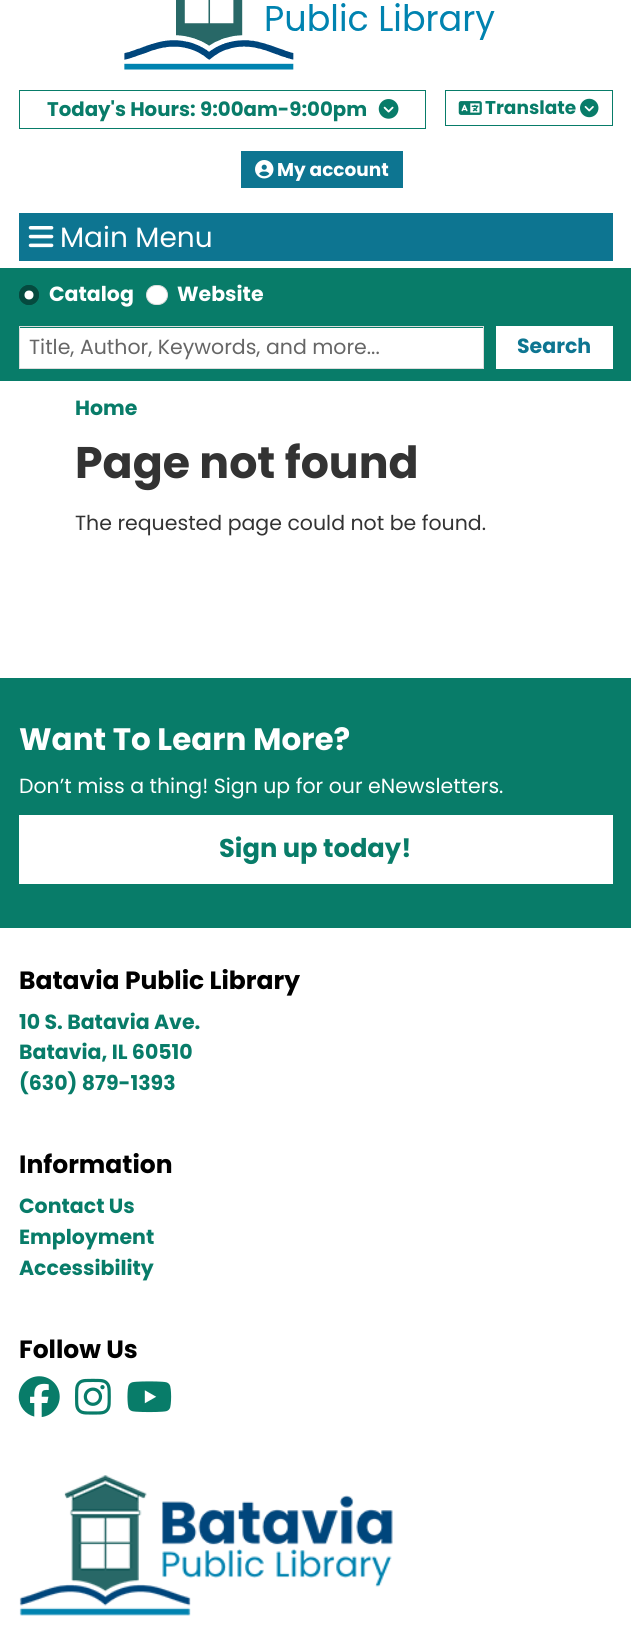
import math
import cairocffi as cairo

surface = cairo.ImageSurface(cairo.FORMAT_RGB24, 631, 1652)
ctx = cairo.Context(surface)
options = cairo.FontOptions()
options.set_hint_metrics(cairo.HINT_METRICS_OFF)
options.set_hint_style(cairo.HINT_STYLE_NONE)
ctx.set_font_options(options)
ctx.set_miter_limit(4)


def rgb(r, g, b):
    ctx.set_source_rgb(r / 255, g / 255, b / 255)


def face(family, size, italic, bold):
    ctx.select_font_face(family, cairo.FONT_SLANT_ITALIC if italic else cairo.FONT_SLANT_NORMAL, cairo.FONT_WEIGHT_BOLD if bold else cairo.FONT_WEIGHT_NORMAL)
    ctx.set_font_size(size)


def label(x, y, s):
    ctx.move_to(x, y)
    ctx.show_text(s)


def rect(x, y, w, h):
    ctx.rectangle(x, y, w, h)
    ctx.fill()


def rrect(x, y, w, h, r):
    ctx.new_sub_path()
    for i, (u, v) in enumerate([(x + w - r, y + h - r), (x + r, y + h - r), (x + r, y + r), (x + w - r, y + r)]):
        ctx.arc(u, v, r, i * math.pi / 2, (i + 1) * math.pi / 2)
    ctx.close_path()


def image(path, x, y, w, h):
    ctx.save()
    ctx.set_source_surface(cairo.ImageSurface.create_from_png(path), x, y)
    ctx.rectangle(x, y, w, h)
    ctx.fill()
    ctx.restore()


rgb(255, 255, 255)
ctx.paint()
image('image0.png', 124, 0, 371, 70)
ctx.rectangle(19.5, 90.5, 406, 38)
rgb(8, 124, 105)
ctx.set_line_width(1)
ctx.stroke()
face('Poppins', 19.75, 0, 1)
label(47, 116, 'Today\'s Hours:')
label(200, 116, '9:00am-9:00pm')
image('image1.png', 378, 99, 21, 20)
ctx.rectangle(445.5, 90.5, 167, 35)
ctx.stroke()
image('image2.png', 458, 101, 24, 14)
face('Poppins', 18.5, 0, 1)
label(485, 114, 'Translate')
image('image3.png', 580, 98, 19, 20)
rgb(13, 117, 145)
rect(241, 151, 162, 37)
image('image4.png', 255, 160, 19, 19)
rgb(255, 255, 255)
label(277, 176, 'My account')
rgb(13, 117, 145)
rect(19, 213, 594, 48)
image('image5.png', 28, 226, 26, 22)
face('Poppins', 28, 0, 0)
rgb(255, 255, 255)
label(60, 247, 'Main Menu')
rgb(8, 124, 105)
rect(0, 268, 631, 113)
rgb(5, 74, 63)
ctx.new_path()
ctx.arc(29, 295, 10, 0, 2 * math.pi)
ctx.fill()
rgb(255, 255, 255)
ctx.arc(29, 295, 4.5, 0, 2 * math.pi)
ctx.fill()
ctx.arc(29, 295, 9.5, 0, 2 * math.pi)
rgb(5, 74, 63)
ctx.stroke()
face('Poppins', 20.5, 0, 1)
rgb(255, 255, 255)
label(49, 301, 'Catalog')
rrect(146.5, 285.5, 21, 19, 9.5)
ctx.fill_preserve()
rgb(221, 221, 221)
ctx.stroke()
rgb(255, 255, 255)
label(177, 301, 'Website')
rect(20, 328, 463, 40)
ctx.rectangle(19.5, 326.5, 464, 42)
rgb(221, 221, 221)
ctx.stroke()
face('Poppins', 20.5, 0, 0)
rgb(102, 102, 102)
label(29, 354, 'Title, Author, Keywords, and more...')
rgb(255, 255, 255)
rect(496, 326, 117, 43)
face('Poppins', 20.5, 0, 1)
rgb(13, 117, 145)
label(517, 353, 'Search')
rgb(8, 124, 105)
label(75, 415, 'Home')
face('Poppins', 44.25, 0, 1)
rgb(51, 51, 51)
label(75, 478, 'Page not found')
face('Poppins', 20.5, 0, 0)
label(75, 530, 'The requested page could not be found.')
rgb(8, 124, 105)
rect(0, 678, 631, 250)
face('Poppins', 31, 0, 1)
rgb(255, 255, 255)
label(19, 750, 'Want To Learn More?')
face('Poppins', 20.5, 0, 0)
label(19, 793, 'Don’t miss a thing! Sign up for our eNewsletters.')
rect(19, 815, 594, 69)
face('Poppins', 25.75, 0, 1)
rgb(8, 124, 105)
label(219, 857, 'Sign up today!')
face('Poppins', 25, 0, 1)
rgb(0, 0, 0)
label(19, 989, 'Batavia Public Library')
face('Poppins', 20.5, 0, 1)
rgb(8, 124, 105)
label(19, 1029, '10 S. Batavia Ave.')
label(19, 1059, 'Batavia, IL 60510')
label(19, 1090, '(630) 879-1393')
face('Poppins', 25, 0, 1)
rgb(0, 0, 0)
label(19, 1173, 'Information')
face('Poppins', 20.5, 0, 1)
rgb(8, 124, 105)
label(19, 1213, 'Contact Us')
label(19, 1244, 'Employment')
label(19, 1275, 'Accessibility')
face('Poppins', 25, 0, 1)
rgb(0, 0, 0)
label(19, 1358, 'Follow Us')
image('image6.png', 18, 1376, 42, 41)
image('image7.png', 75, 1378, 36, 37)
image('image8.png', 127, 1381, 45, 32)
image('image9.png', 19, 1475, 374, 141)
surface.write_to_png('render.png')
